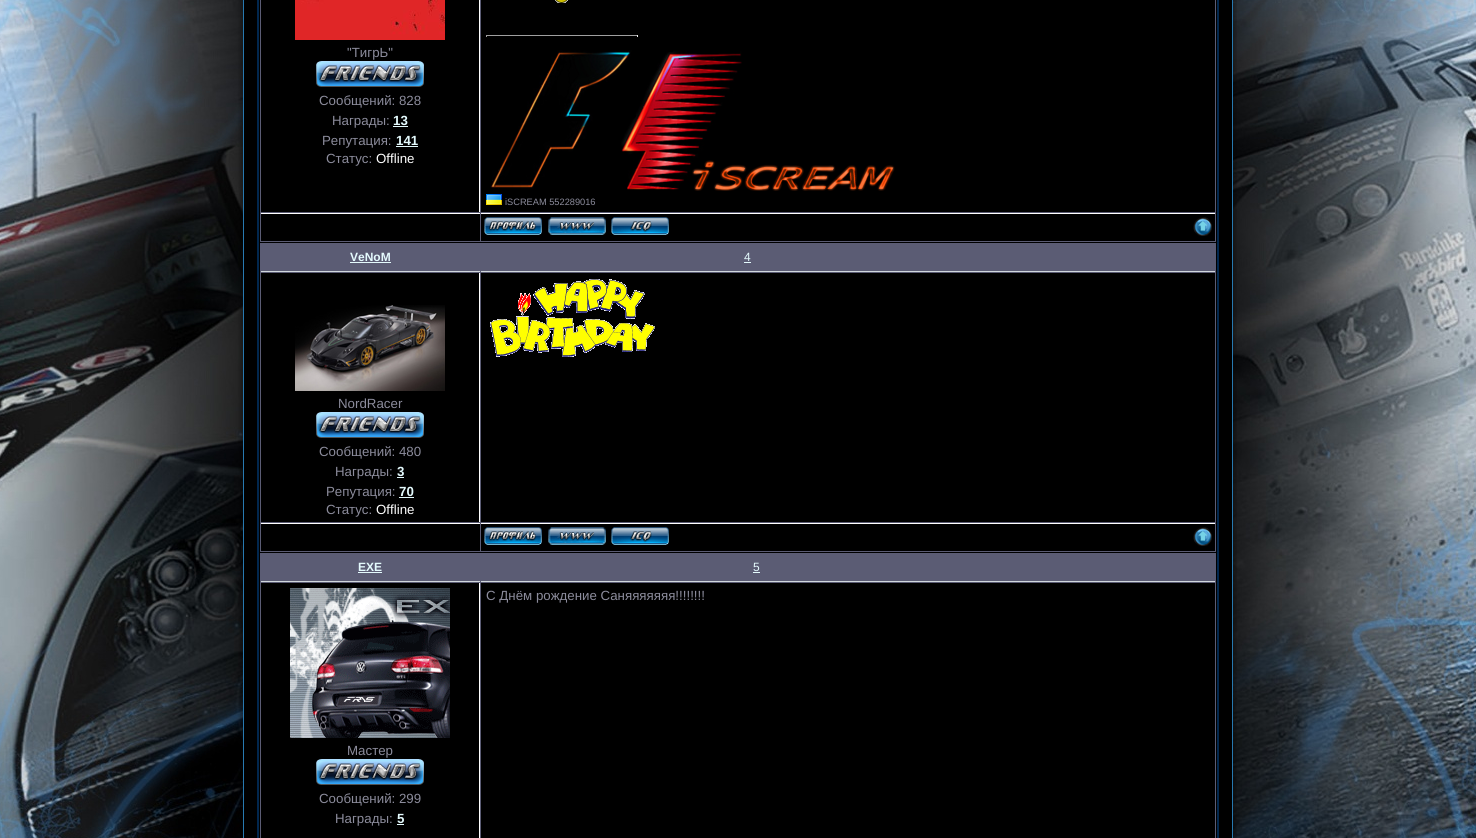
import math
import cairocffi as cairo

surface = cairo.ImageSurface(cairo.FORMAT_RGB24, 1476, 838)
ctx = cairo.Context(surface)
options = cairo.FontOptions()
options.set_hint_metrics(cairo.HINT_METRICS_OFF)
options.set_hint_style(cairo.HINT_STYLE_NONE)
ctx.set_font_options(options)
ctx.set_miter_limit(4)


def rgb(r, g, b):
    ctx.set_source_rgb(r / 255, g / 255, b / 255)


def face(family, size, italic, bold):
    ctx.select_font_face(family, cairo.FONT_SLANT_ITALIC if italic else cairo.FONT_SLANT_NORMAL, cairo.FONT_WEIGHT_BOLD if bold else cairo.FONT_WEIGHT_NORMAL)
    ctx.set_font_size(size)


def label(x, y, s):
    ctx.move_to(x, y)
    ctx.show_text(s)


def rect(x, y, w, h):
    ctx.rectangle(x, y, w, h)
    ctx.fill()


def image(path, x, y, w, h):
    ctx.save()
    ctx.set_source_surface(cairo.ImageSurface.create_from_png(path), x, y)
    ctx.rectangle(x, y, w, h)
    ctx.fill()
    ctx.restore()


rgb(255, 255, 255)
ctx.paint()
image('image0.png', 0, 0, 1476, 838)
image('image1.png', 238, 0, 19, 838)
rgb(0, 0, 0)
ctx.rectangle(258, -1, 960, 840)
ctx.fill_preserve()
rgb(1, 39, 78)
ctx.stroke()
rgb(91, 92, 116)
rect(260, 0, 956, 242)
rgb(0, 0, 0)
rect(261, 0, 218, 212)
rgb(255, 255, 255)
rect(479, 0, 1, 212)
image('image2.png', 295, 0, 150, 40)
face('Liberation Sans', 13.3, 0, 0)
rgb(140, 140, 156)
label(347, 57, '"ТигрЬ"')
image('image3.png', 316, 61, 108, 26)
label(319, 105, 'Сообщений: 828')
label(332, 125, 'Награды:')
face('Liberation Sans', 13.3, 0, 1)
rgb(228, 250, 253)
label(393, 125, '13')
rect(393, 126, 15, 1)
face('Liberation Sans', 13.3, 0, 0)
rgb(140, 140, 156)
label(322, 145, 'Репутация:')
face('Liberation Sans', 13.3, 0, 1)
rgb(228, 250, 253)
label(396, 145, '141')
rect(396, 146, 22, 1)
face('Liberation Sans', 13.3, 0, 0)
rgb(140, 140, 156)
label(326, 163, 'Статус:')
rgb(255, 255, 255)
label(376, 163, 'Offline')
rgb(0, 0, 0)
rect(481, 0, 734, 212)
image('image4.png', 555, 0, 13, 3)
rgb(159, 159, 159)
rect(486, 35, 152, 1)
rgb(238, 238, 238)
rect(637, 35, 1, 2)
rgb(159, 159, 159)
rect(486, 35, 1, 2)
image('image5.png', 490, 50, 405, 141)
image('image6.png', 486, 194, 16, 11)
face('Liberation Sans', 9.25, 0, 0)
rgb(140, 140, 156)
label(505, 205, 'iSCREAM 552289016')
rgb(0, 0, 0)
rect(261, 214, 219, 27)
rgb(255, 255, 255)
rect(261, 213, 219, 1)
rgb(0, 0, 0)
rect(481, 214, 734, 27)
rgb(255, 255, 255)
rect(481, 213, 734, 1)
image('image7.png', 484, 217, 58, 18)
image('image8.png', 548, 217, 58, 18)
image('image9.png', 611, 217, 58, 18)
image('image10.png', 1193, 217, 19, 19)
rgb(91, 92, 116)
rect(260, 243, 956, 309)
rgb(209, 215, 220)
rect(261, 271, 219, 1)
face('Liberation Sans', 12, 0, 1)
rgb(228, 250, 253)
label(350, 261, 'VeNoM')
rect(350, 262, 41, 1)
rgb(209, 215, 220)
rect(481, 271, 734, 1)
face('Liberation Sans', 12, 0, 0)
rgb(228, 250, 253)
label(744, 261, '4')
rect(744, 262, 7, 1)
rgb(0, 0, 0)
rect(261, 273, 218, 249)
rgb(255, 255, 255)
rect(479, 273, 1, 249)
image('image11.png', 295, 305, 150, 86)
face('Liberation Sans', 13.3, 0, 0)
rgb(140, 140, 156)
label(338, 408, 'NordRacer')
image('image3.png', 316, 412, 108, 26)
label(319, 456, 'Сообщений: 480')
label(335, 476, 'Награды:')
face('Liberation Sans', 13.3, 0, 1)
rgb(228, 250, 253)
label(397, 476, '3')
rect(397, 477, 7, 1)
face('Liberation Sans', 13.3, 0, 0)
rgb(140, 140, 156)
label(326, 496, 'Репутация:')
face('Liberation Sans', 13.3, 0, 1)
rgb(228, 250, 253)
label(399, 496, '70')
rect(399, 497, 15, 1)
face('Liberation Sans', 13.3, 0, 0)
rgb(140, 140, 156)
label(326, 514, 'Статус:')
rgb(255, 255, 255)
label(376, 514, 'Offline')
rgb(0, 0, 0)
rect(481, 273, 734, 249)
image('image12.png', 490, 279, 165, 78)
rect(261, 524, 219, 27)
rgb(255, 255, 255)
rect(261, 523, 219, 1)
rgb(0, 0, 0)
rect(481, 524, 734, 27)
rgb(255, 255, 255)
rect(481, 523, 734, 1)
image('image7.png', 484, 527, 58, 18)
image('image8.png', 548, 527, 58, 18)
image('image9.png', 611, 527, 58, 18)
image('image10.png', 1193, 527, 19, 19)
rgb(91, 92, 116)
rect(260, 553, 956, 285)
rgb(209, 215, 220)
rect(261, 581, 219, 1)
face('Liberation Sans', 12, 0, 1)
rgb(228, 250, 253)
label(358, 571, 'EXE')
rect(358, 572, 24, 1)
rgb(209, 215, 220)
rect(481, 581, 734, 1)
face('Liberation Sans', 12, 0, 0)
rgb(228, 250, 253)
label(753, 571, '5')
rect(753, 572, 7, 1)
rgb(0, 0, 0)
rect(481, 583, 734, 255)
face('Liberation Sans', 13.3, 0, 0)
rgb(140, 140, 156)
label(486, 600, 'С Днём рождение Саняяяяяяя!!!!!!!!')
rgb(0, 0, 0)
rect(261, 583, 218, 255)
rgb(255, 255, 255)
rect(479, 583, 1, 255)
image('image13.png', 290, 588, 160, 150)
rgb(140, 140, 156)
label(347, 755, 'Мастер')
image('image3.png', 316, 759, 108, 26)
label(319, 803, 'Сообщений: 299')
label(335, 823, 'Награды:')
face('Liberation Sans', 13.3, 0, 1)
rgb(228, 250, 253)
label(397, 823, '5')
rect(397, 824, 7, 1)
image('image14.png', 1219, 0, 18, 838)
surface.write_to_png('render.png')
